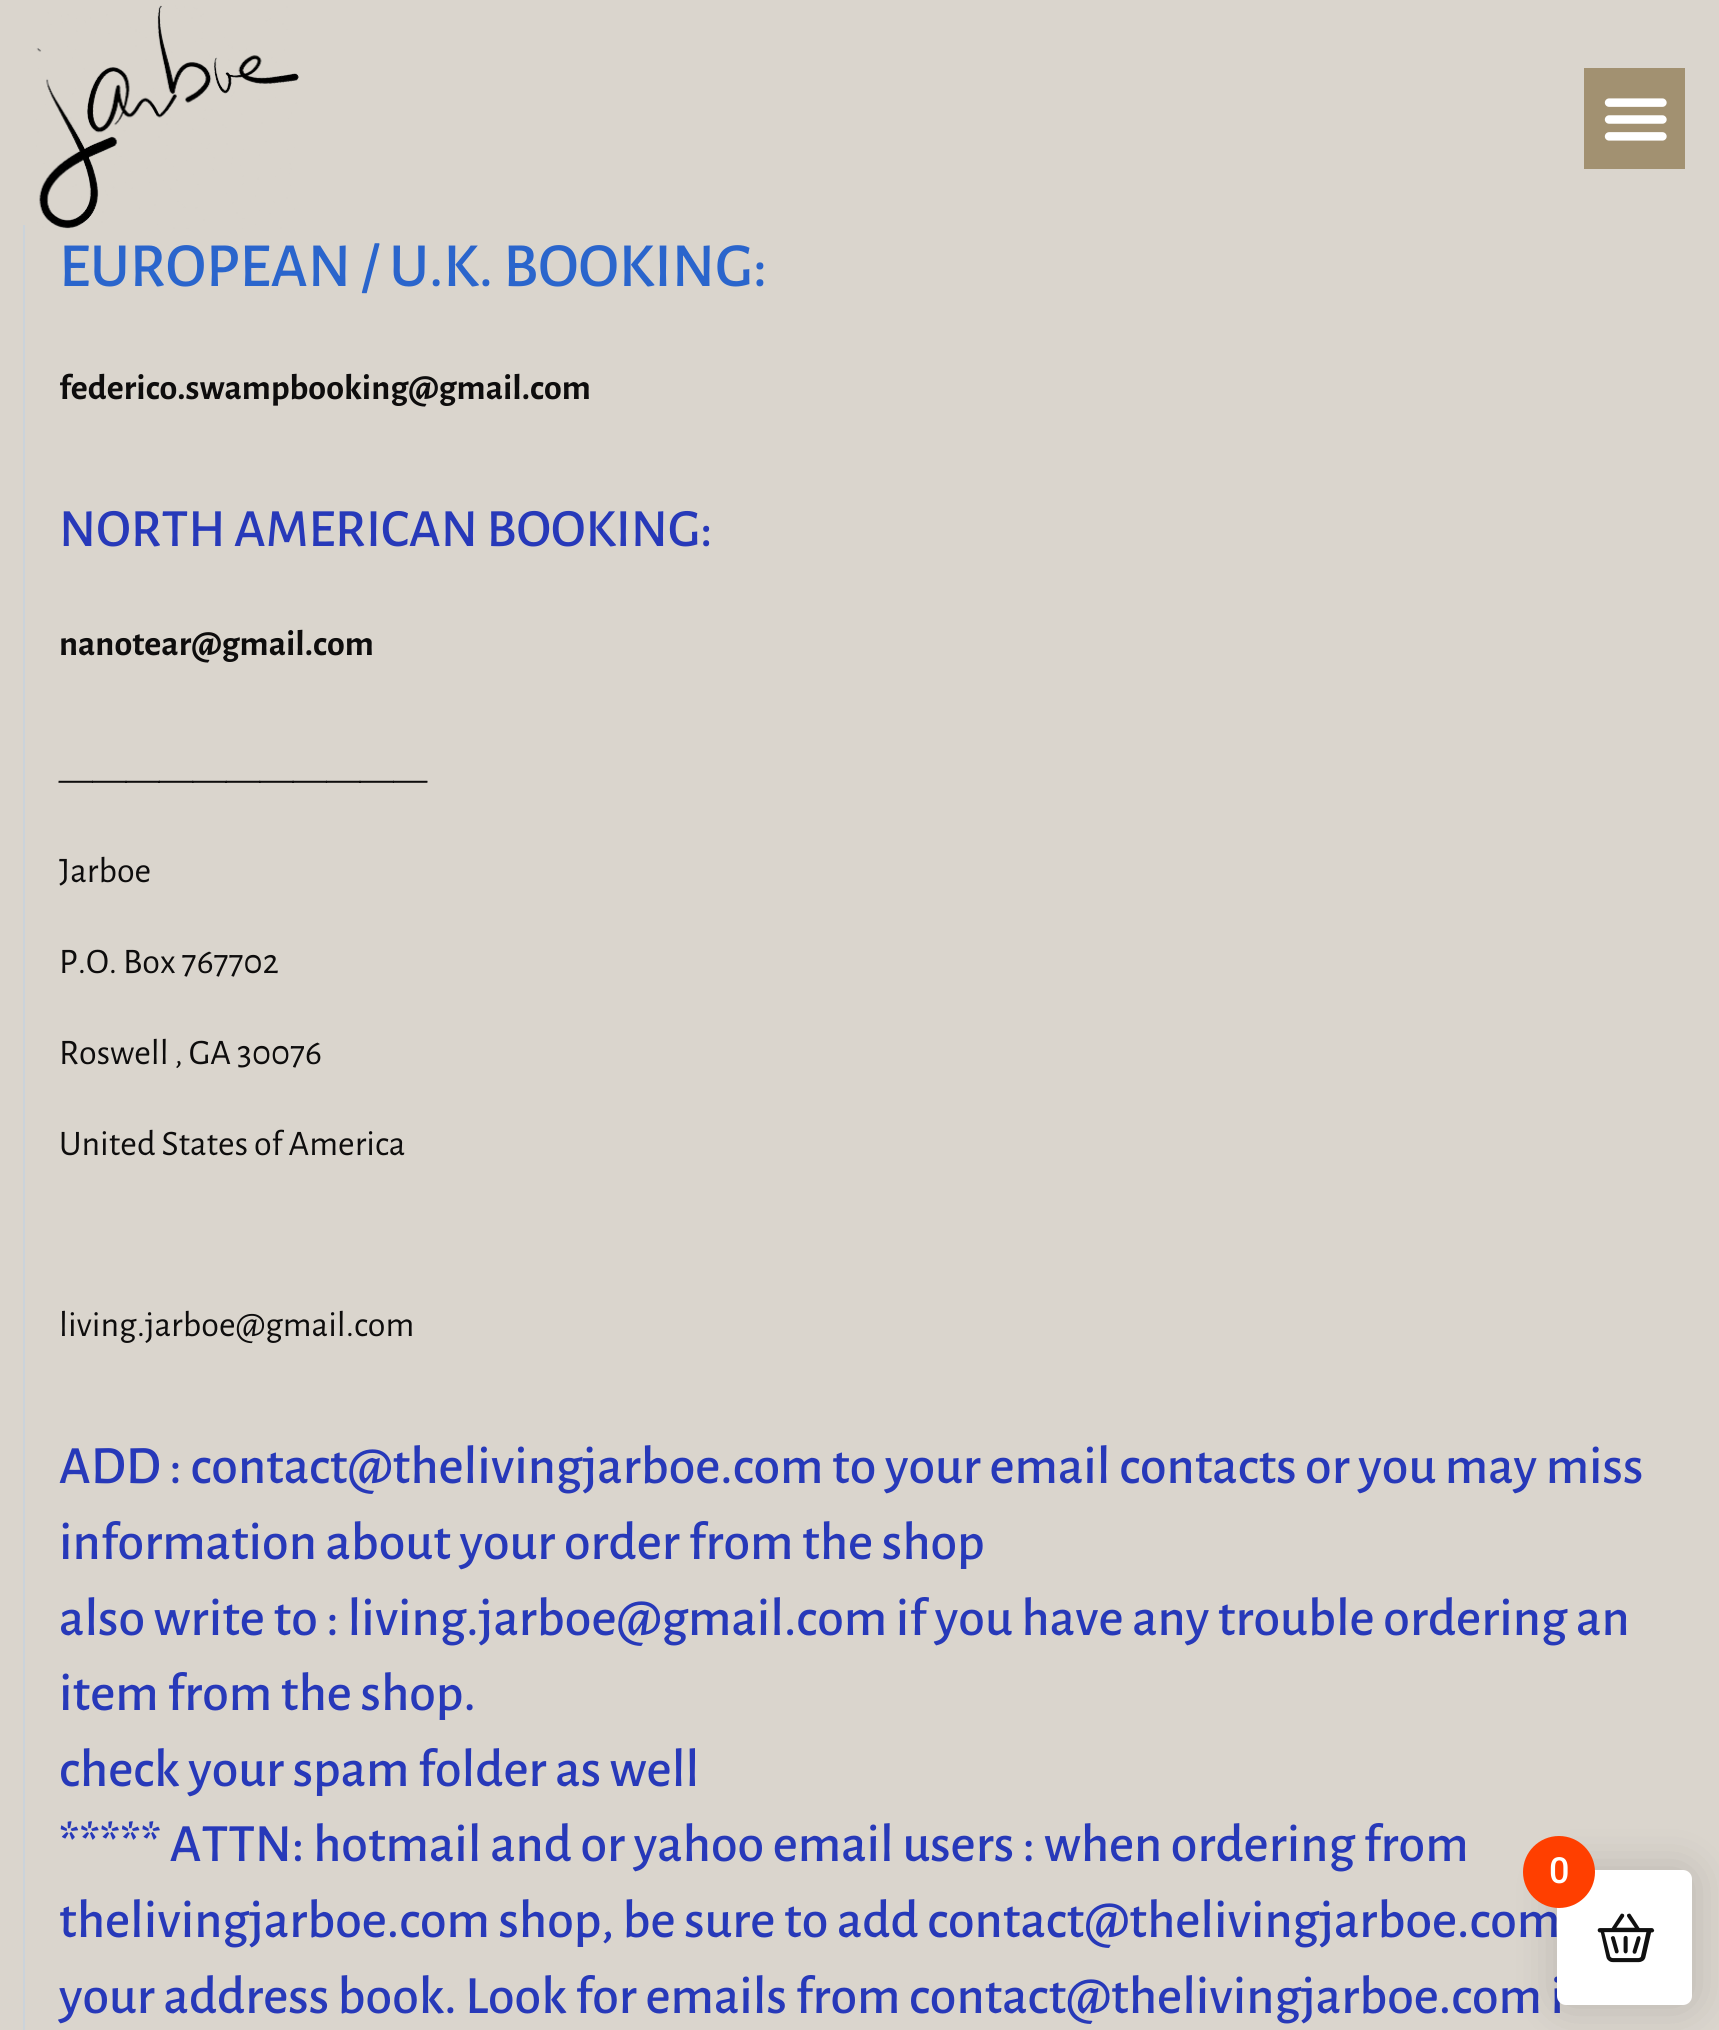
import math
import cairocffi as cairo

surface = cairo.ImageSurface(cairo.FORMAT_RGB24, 1719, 2030)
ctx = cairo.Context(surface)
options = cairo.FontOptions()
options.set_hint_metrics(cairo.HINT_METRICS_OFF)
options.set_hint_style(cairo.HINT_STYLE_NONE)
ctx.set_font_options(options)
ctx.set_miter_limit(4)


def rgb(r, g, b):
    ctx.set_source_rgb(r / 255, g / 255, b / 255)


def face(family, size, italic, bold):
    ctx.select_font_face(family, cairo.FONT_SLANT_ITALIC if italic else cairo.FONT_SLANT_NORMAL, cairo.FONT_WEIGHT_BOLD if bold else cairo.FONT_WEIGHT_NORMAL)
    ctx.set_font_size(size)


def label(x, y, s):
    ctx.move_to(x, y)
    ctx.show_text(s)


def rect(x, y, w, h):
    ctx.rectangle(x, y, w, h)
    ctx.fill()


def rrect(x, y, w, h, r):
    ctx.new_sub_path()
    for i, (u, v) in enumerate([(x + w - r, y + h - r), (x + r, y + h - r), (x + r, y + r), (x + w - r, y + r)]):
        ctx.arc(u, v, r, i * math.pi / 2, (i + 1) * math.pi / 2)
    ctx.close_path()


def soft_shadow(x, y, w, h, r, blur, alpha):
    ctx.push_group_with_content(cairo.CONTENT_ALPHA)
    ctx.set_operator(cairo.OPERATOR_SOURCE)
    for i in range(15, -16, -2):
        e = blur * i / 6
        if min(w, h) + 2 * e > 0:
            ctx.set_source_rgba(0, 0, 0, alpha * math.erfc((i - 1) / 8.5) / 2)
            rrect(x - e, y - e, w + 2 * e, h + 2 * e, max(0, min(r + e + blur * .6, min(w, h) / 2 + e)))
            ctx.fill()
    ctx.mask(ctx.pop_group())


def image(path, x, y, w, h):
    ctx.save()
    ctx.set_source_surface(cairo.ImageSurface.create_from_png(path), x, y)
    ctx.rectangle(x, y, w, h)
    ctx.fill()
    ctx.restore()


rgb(218, 213, 205)
ctx.paint()
image('image0.png', 36, 5, 263, 224)
rgb(162, 145, 113)
rect(1584, 68, 101, 101)
image('image1.png', 1604, 98, 63, 43)
rgb(203, 211, 218)
rect(23, 225, 2, 1805)
face('Alegreya Sans Medium', 63, 0, 0)
rgb(42, 101, 204)
label(59, 286, 'EUROPEAN / U.K. BOOKING:')
face('Alegreya Sans', 36, 0, 1)
rgb(14, 13, 13)
label(59, 399, 'federico.swampbooking@gmail.com')
face('Alegreya Sans Medium', 54, 0, 0)
rgb(39, 57, 185)
label(59, 546, 'NORTH AMERICAN BOOKING:')
face('Alegreya Sans', 36, 0, 1)
rgb(14, 13, 13)
label(59, 655, 'nanotear@gmail.com')
face('Alegreya Sans', 36, 0, 0)
label(59, 791, '———————————')
label(59, 882, 'Jarboe')
label(59, 973, 'P.O. Box 767702')
label(59, 1064, 'Roswell , GA 30076')
label(59, 1155, 'United States of America')
label(59, 1336, 'living.jarboe@gmail.com')
face('Alegreya Sans Medium', 54, 0, 0)
rgb(39, 57, 185)
label(59, 1483, 'ADD : contact@thelivingjarboe.com to your email contacts or you may miss')
label(59, 1559, 'information about your order from the shop')
label(59, 1635, 'also write to : living.jarboe@gmail.com if you have any trouble ordering an')
label(59, 1710, 'item from the shop.')
label(59, 1786, 'check your spam folder as well')
label(59, 1861, '***** ATTN: hotmail and or yahoo email users : when ordering from')
label(59, 1937, 'thelivingjarboe.com shop, be sure to add contact@thelivingjarboe.com')
label(59, 2013, 'your address book. Look for emails from contact@thelivingjarboe.com i')
rgb(0, 0, 0)
soft_shadow(1557, 1870, 135, 135, 9, 22.5, 0.15)
rgb(255, 255, 255)
rrect(1557, 1870, 135, 135, 9)
ctx.fill()
rgb(255, 63, 0)
ctx.arc(1559, 1872, 36, 0, 2 * math.pi)
ctx.fill()
face('Roboto Medium', 36, 0, 0)
rgb(255, 255, 255)
label(1549, 1883, '0')
image('image2.png', 1597, 1913, 58, 50)
surface.write_to_png('render.png')
